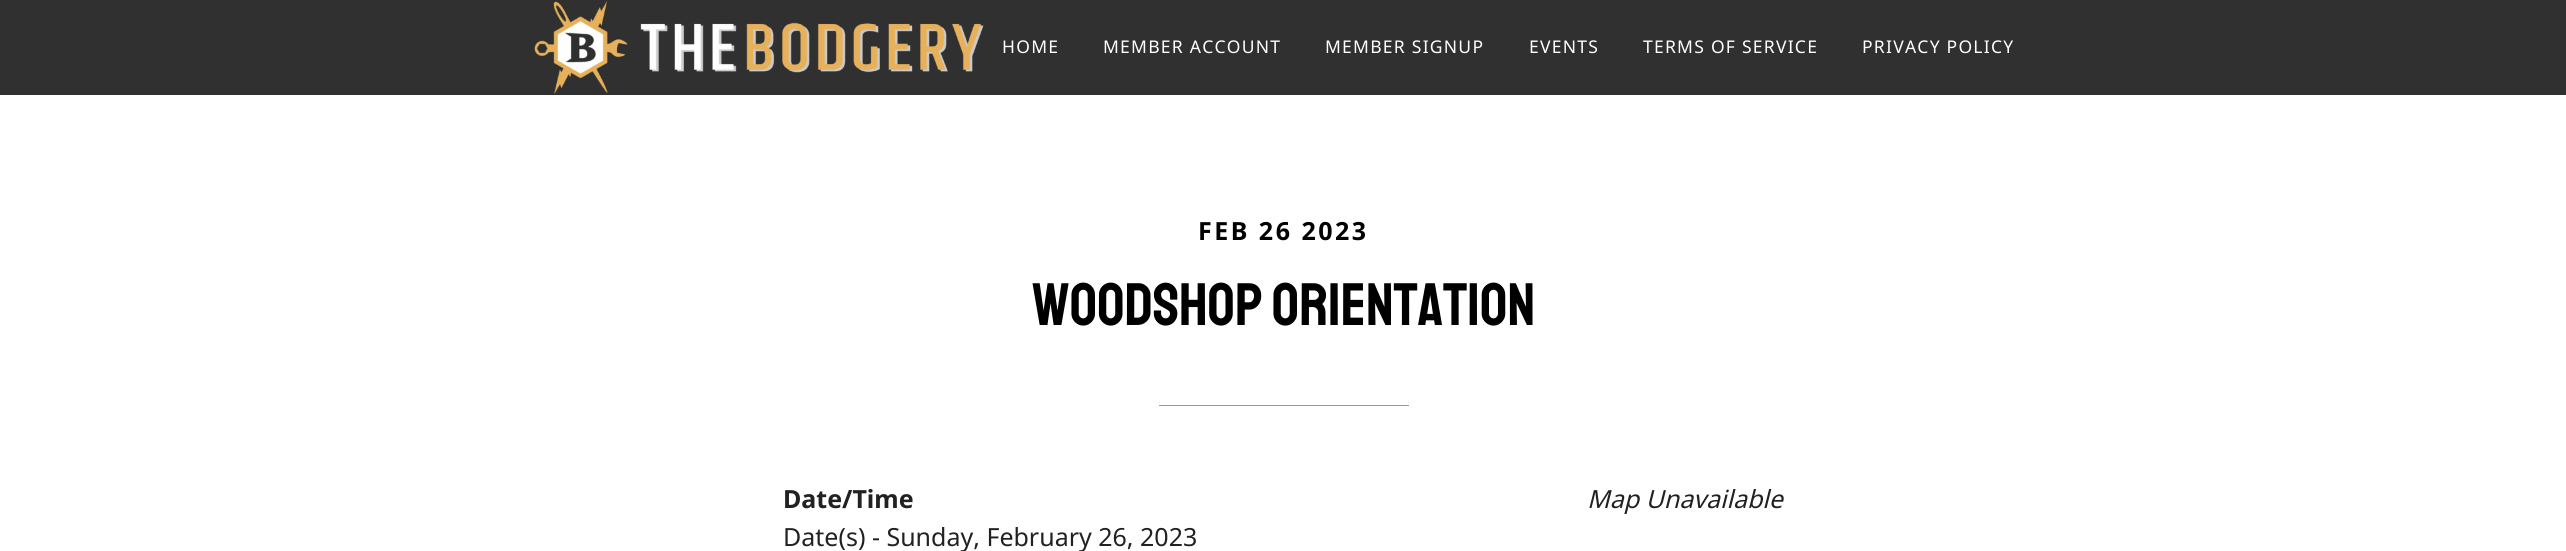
import math
import cairocffi as cairo

surface = cairo.ImageSurface(cairo.FORMAT_RGB24, 2566, 551)
ctx = cairo.Context(surface)
options = cairo.FontOptions()
options.set_hint_metrics(cairo.HINT_METRICS_OFF)
options.set_hint_style(cairo.HINT_STYLE_NONE)
ctx.set_font_options(options)
ctx.set_miter_limit(4)


def rgb(r, g, b):
    ctx.set_source_rgb(r / 255, g / 255, b / 255)


def face(family, size, italic, bold):
    ctx.select_font_face(family, cairo.FONT_SLANT_ITALIC if italic else cairo.FONT_SLANT_NORMAL, cairo.FONT_WEIGHT_BOLD if bold else cairo.FONT_WEIGHT_NORMAL)
    ctx.set_font_size(size)


def label(x, y, s):
    ctx.move_to(x, y)
    ctx.show_text(s)


def tracked(x, y, s, letter, word):
    ctx.move_to(x, y)
    for ch in s:
        ctx.show_text(ch)
        ctx.rel_move_to(letter + word * (ch == ' '), 0)


def rect(x, y, w, h):
    ctx.rectangle(x, y, w, h)
    ctx.fill()


def image(path, x, y, w, h):
    ctx.save()
    ctx.set_source_surface(cairo.ImageSurface.create_from_png(path), x, y)
    ctx.rectangle(x, y, w, h)
    ctx.fill()
    ctx.restore()


rgb(255, 255, 255)
ctx.paint()
rgb(48, 48, 48)
rect(0, 0, 2566, 95)
image('image0.png', 534, 1, 450, 93)
face('Noto Sans', 17.5, 0, 0)
rgb(255, 255, 255)
tracked(1002, 53, 'HOME', 1.25, 0)
tracked(1103, 53, 'MEMBER ACCOUNT', 1.25, 0)
tracked(1325, 53, 'MEMBER SIGNUP', 1.25, 0)
tracked(1529, 53, 'EVENTS', 1.25, 0)
tracked(1643, 53, 'TERMS OF SERVICE', 1.25, 0)
tracked(1862, 53, 'PRIVACY POLICY', 1.25, 0)
face('Noto Sans', 25, 0, 1)
rgb(0, 0, 0)
tracked(1198, 240, 'FEB 26 2023', 2.5, 0)
face('Staatliches', 60, 0, 0)
label(1032, 325, 'Woodshop Orientation')
rgb(232, 126, 91)
rect(1159, 405, 250, 1)
face('Noto Sans', 25, 0, 1)
rgb(33, 33, 33)
label(783, 508, 'Date/Time')
face('Noto Sans', 25, 0, 0)
label(783, 546, 'Date(s) - Sunday, February 26, 2023')
face('Noto Sans', 25, 1, 0)
label(1587, 508, 'Map Unavailable')
surface.write_to_png('render.png')
